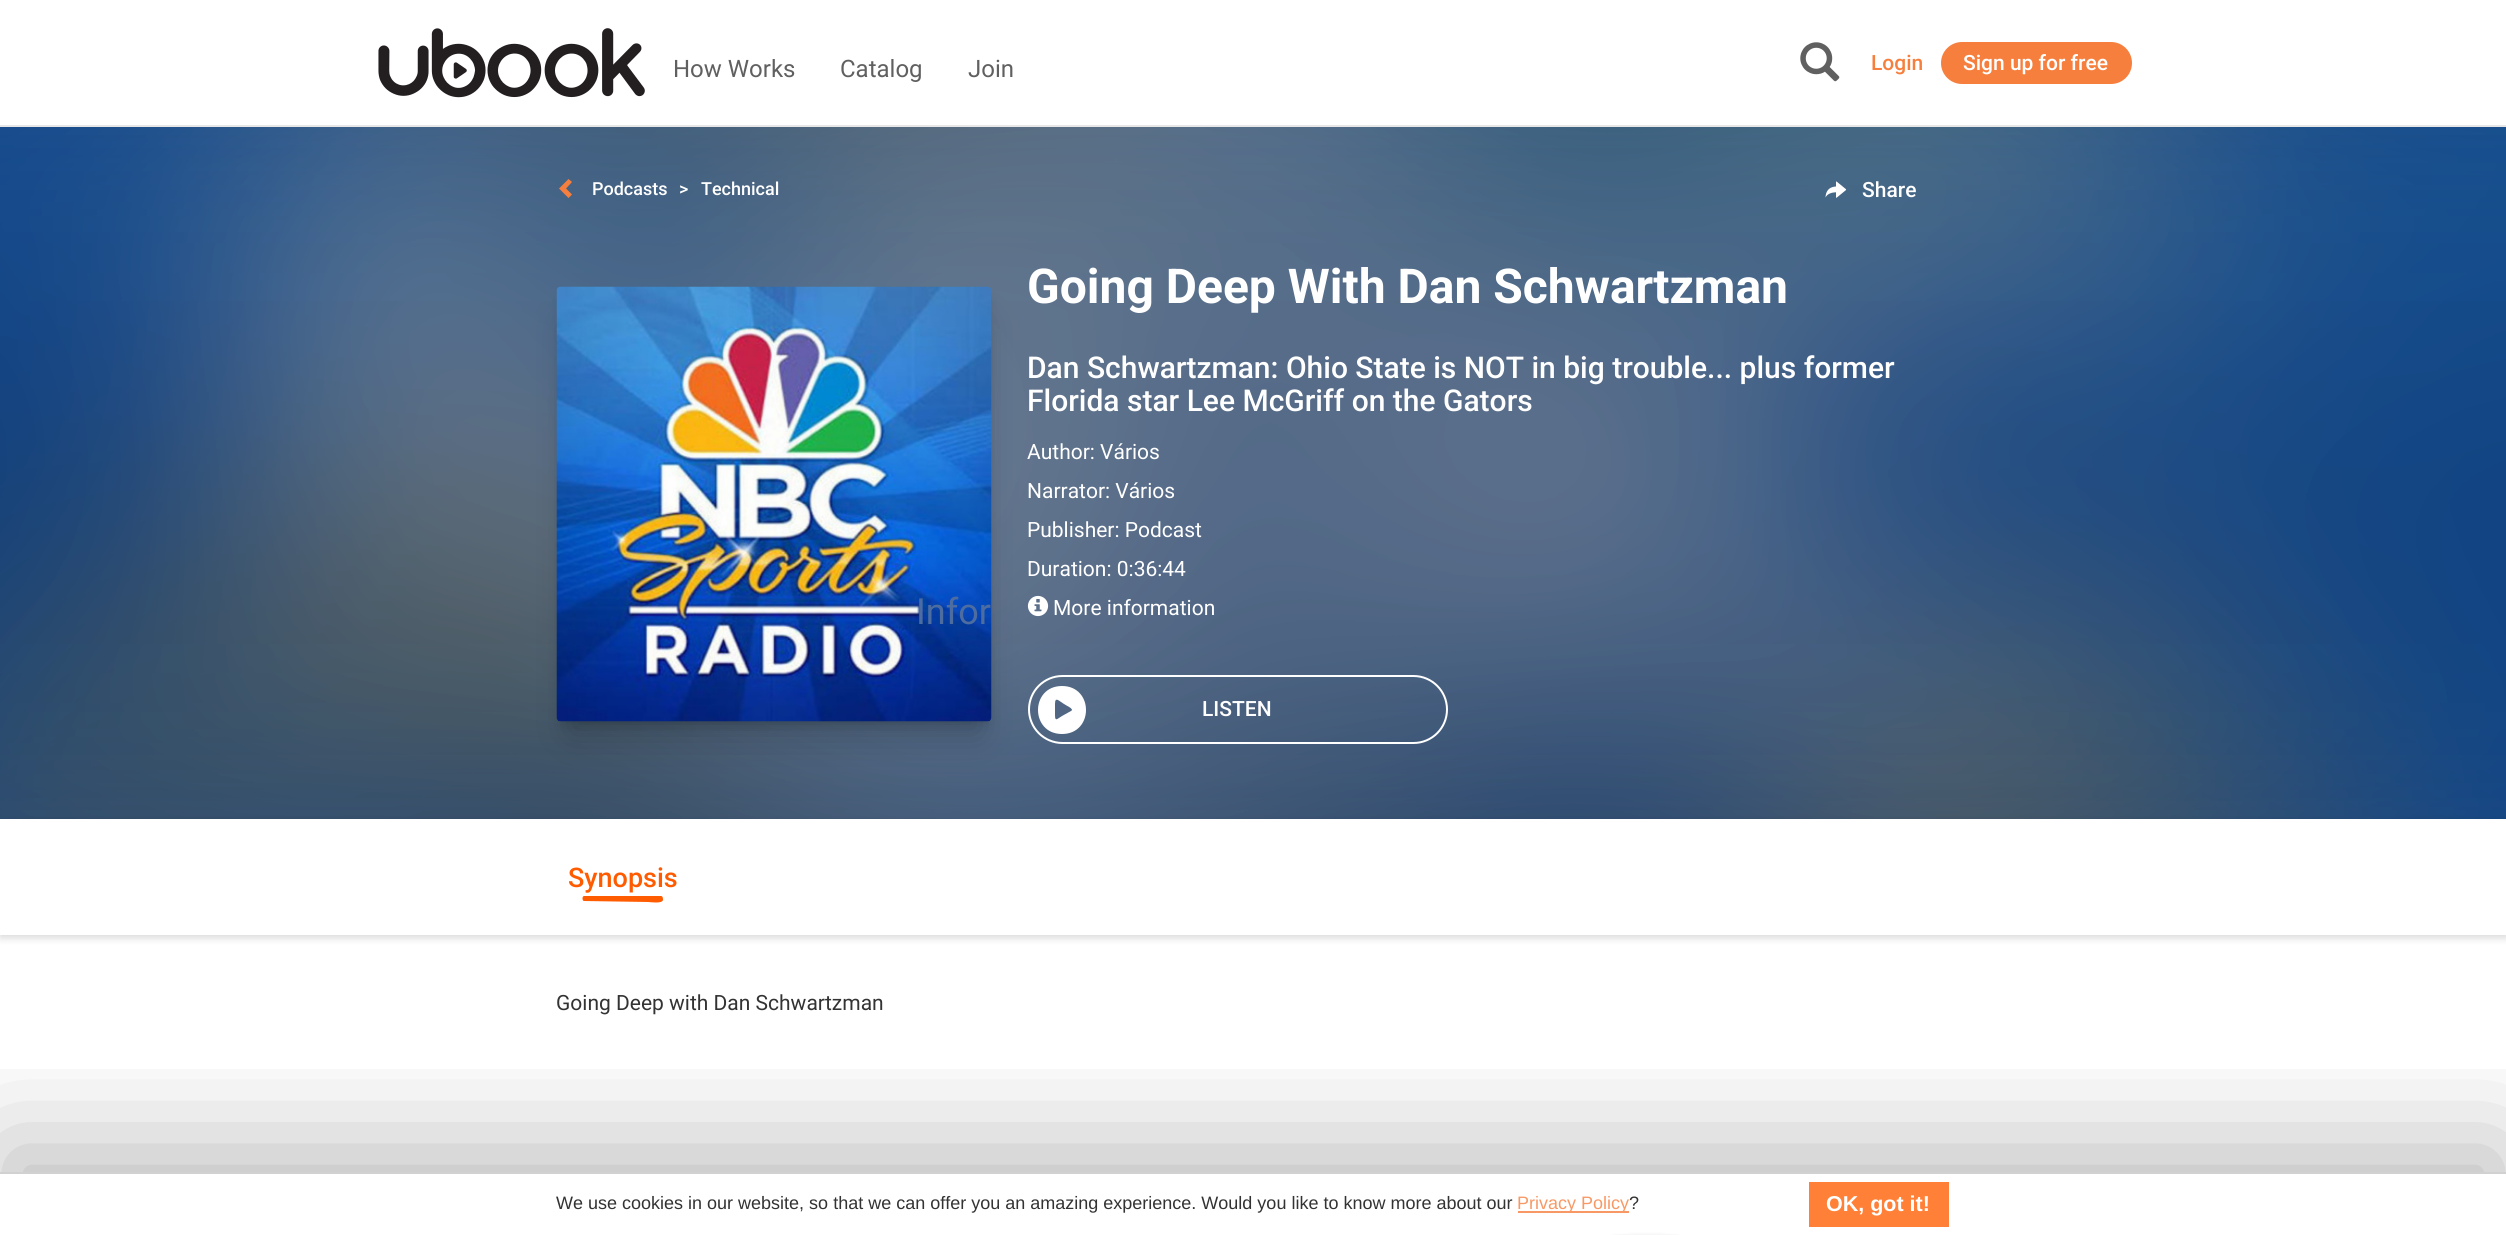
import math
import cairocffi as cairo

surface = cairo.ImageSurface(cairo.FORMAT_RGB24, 2506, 1235)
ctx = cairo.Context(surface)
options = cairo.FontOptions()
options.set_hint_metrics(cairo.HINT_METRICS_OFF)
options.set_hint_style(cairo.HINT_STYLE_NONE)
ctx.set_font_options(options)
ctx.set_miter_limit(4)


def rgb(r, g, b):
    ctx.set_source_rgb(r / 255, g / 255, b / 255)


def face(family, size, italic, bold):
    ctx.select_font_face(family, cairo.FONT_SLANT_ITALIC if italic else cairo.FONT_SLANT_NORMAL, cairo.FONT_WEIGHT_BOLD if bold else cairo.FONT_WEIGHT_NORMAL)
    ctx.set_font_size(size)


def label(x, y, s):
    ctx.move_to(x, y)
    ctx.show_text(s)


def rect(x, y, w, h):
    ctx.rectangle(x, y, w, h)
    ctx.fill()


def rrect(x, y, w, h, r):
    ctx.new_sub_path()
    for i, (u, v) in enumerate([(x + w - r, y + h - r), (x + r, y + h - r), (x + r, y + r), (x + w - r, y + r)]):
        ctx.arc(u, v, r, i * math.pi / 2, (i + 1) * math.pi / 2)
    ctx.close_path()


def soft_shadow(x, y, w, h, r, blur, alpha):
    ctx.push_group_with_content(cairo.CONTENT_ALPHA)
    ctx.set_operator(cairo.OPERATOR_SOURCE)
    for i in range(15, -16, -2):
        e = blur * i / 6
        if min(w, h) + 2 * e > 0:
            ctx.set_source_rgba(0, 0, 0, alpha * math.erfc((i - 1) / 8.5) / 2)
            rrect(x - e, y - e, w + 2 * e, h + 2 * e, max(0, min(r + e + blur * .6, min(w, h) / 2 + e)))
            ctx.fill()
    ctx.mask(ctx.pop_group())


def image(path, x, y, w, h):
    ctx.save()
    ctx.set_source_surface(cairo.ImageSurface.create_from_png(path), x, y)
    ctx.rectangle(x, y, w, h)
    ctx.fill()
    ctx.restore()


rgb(255, 255, 255)
ctx.paint()
rgb(231, 231, 231)
rect(0, 125, 2506, 2)
image('image0.png', 378, 28, 267, 70)
face('Roboto', 24, 0, 0)
rgb(96, 96, 96)
label(673, 77, 'How Works')
label(840, 77, 'Catalog')
label(968, 77, 'Join')
image('image1.png', 1800, 42, 40, 40)
face('Roboto Medium', 21, 0, 0)
rgb(246, 127, 62)
label(1871, 70, 'Login')
rrect(1941, 42, 191, 42, 21)
ctx.fill()
rgb(255, 255, 255)
label(1963, 70, 'Sign up for free')
rgb(32, 75, 129)
rect(0, 127, 2506, 692)
image('image2.png', 0, 127, 2506, 692)
rgb(246, 127, 62)
ctx.new_path()
ctx.move_to(572, 182)
ctx.line_to(566, 188.5)
ctx.line_to(572, 194.5)
ctx.line_to(568.5, 198)
ctx.line_to(559, 188.5)
ctx.line_to(568.5, 179)
ctx.close_path()
ctx.fill()
face('Roboto Medium', 18, 0, 0)
rgb(255, 255, 255)
label(592, 195, 'Podcasts')
label(679, 195, '>')
label(701, 195, 'Technical')
image('image3.png', 1825, 181, 22, 17)
face('Roboto Medium', 21, 0, 0)
label(1862, 197, 'Share')
rgb(0, 0, 0)
soft_shadow(563, 299, 423, 423, 0, 6, 0.2)
rrect(1029, 676, 418, 67, 33.5)
rgb(255, 255, 255)
ctx.stroke()
rgb(0, 0, 0)
soft_shadow(569, 323, 411, 411, 0, 18, 0.2)
image('image4.png', 556, 286, 436, 436)
face('Roboto', 36, 0, 0)
rgb(77, 109, 161)
label(916, 624, 'Infor')
face('Roboto', 48, 0, 1)
rgb(255, 255, 255)
label(1027, 303, 'Going Deep With Dan Schwartzman')
face('Roboto Medium', 30, 0, 0)
label(1027, 378, 'Dan Schwartzman: Ohio State is NOT in big trouble... plus former')
label(1027, 411, 'Florida star Lee McGriff on the Gators')
face('Roboto', 21, 0, 0)
label(1027, 459, 'Author: Vários')
label(1027, 498, 'Narrator: Vários')
label(1027, 537, 'Publisher: Podcast')
label(1027, 576, 'Duration: 0:36:44')
image('image5.png', 1027, 595, 22, 22)
label(1053, 615, 'More information')
ctx.new_path()
ctx.move_to(1062, 686)
ctx.curve_to(1030, 686, 1030, 734, 1062, 734)
ctx.curve_to(1094, 734, 1094, 686, 1062, 686)
ctx.close_path()
ctx.move_to(1071, 711)
ctx.line_to(1062, 716)
ctx.curve_to(1057, 719, 1055, 722, 1055, 715)
ctx.line_to(1055, 704)
ctx.curve_to(1055, 696, 1059, 701, 1064, 704)
ctx.curve_to(1065, 705, 1075, 709, 1071, 711)
ctx.close_path()
ctx.fill()
face('Roboto Medium', 21, 0, 0)
label(1202, 716, 'LISTEN')
rgb(0, 0, 0)
soft_shadow(0, 822, 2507, 116, 0, 4, 0.15)
rgb(255, 255, 255)
rect(0, 819, 2506, 116)
face('Roboto Medium', 27, 0, 0)
rgb(255, 91, 0)
label(568, 887, 'Synopsis')
ctx.new_path()
ctx.move_to(584, 896)
ctx.line_to(661, 896)
ctx.curve_to(663, 896, 663, 899, 663, 900)
ctx.curve_to(662, 904, 650, 902, 648, 902)
ctx.line_to(584, 901)
ctx.curve_to(582, 901, 582, 896, 584, 896)
ctx.close_path()
ctx.fill()
face('Roboto', 21, 0, 0)
rgb(51, 51, 51)
label(556, 1010, 'Going Deep with Dan Schwartzman')
image('image6.png', 1608, 1232, 75, 3)
ctx.save()
ctx.rectangle(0, 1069, 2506, 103)
ctx.clip()
rgb(0, 0, 0)
soft_shadow(12, 1154, 2483, 40, 0, 64, 0.3)
ctx.restore()
rgb(209, 209, 209)
rect(0, 1172, 2506, 2)
face('Liberation Sans', 18, 0, 0)
rgb(51, 51, 51)
label(556, 1209, 'We use cookies in our website, so that we can offer you an amazing experience. Would you like to know more about our')
rgb(248, 153, 101)
rect(1518, 1211, 111, 2)
label(1517, 1209, 'Privacy Policy')
rgb(51, 51, 51)
label(1629, 1209, '?')
rgb(255, 128, 54)
rect(1809, 1182, 140, 45)
face('Liberation Sans', 21.5, 0, 1)
rgb(255, 255, 255)
label(1826, 1211, 'OK, got it!')
surface.write_to_png('render.png')
